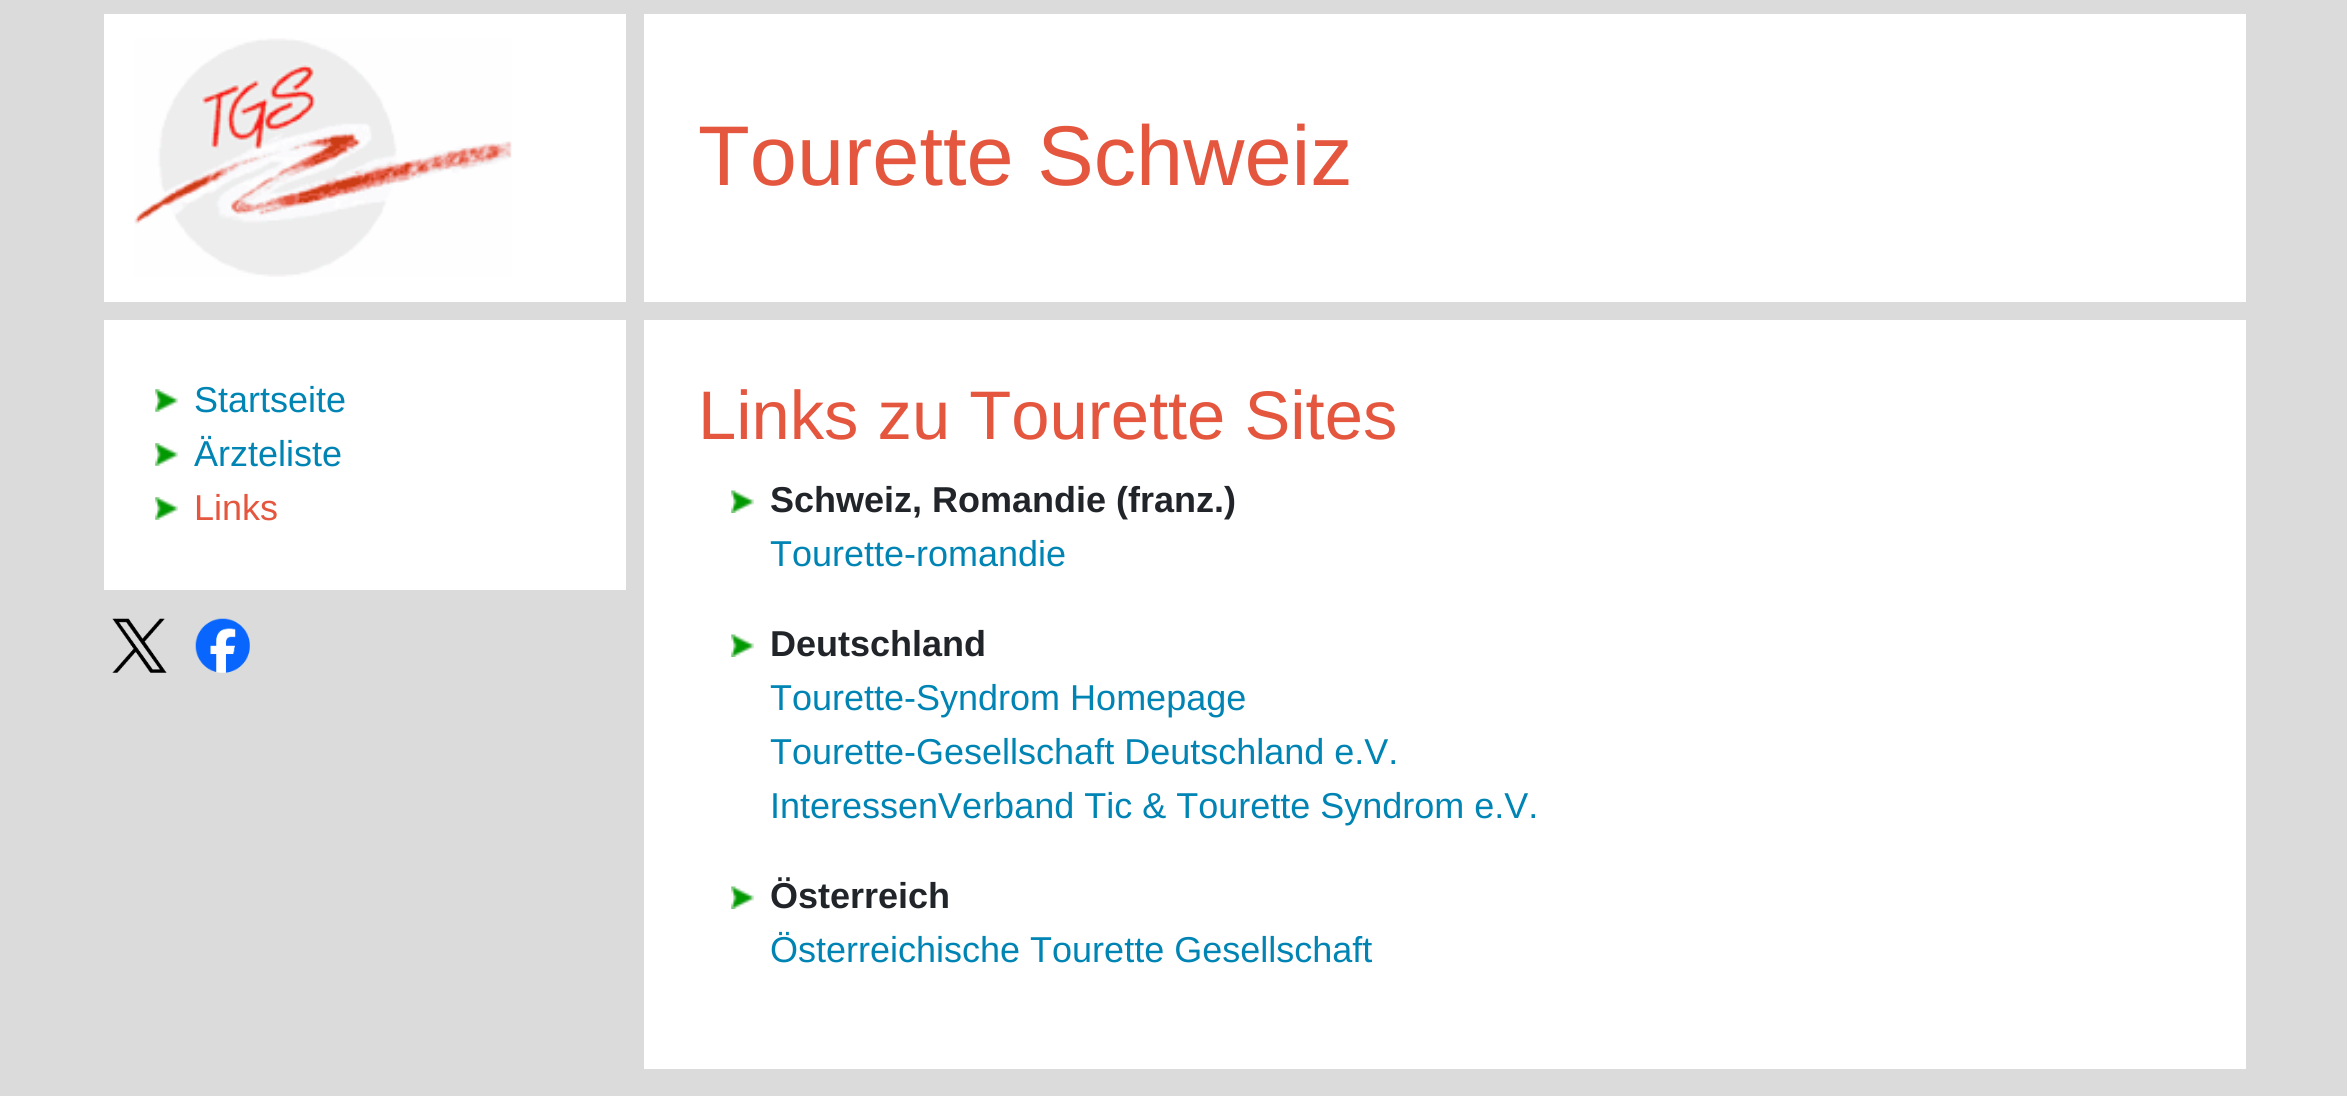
import math
import cairocffi as cairo

surface = cairo.ImageSurface(cairo.FORMAT_RGB24, 2347, 1096)
ctx = cairo.Context(surface)
options = cairo.FontOptions()
options.set_hint_metrics(cairo.HINT_METRICS_OFF)
options.set_hint_style(cairo.HINT_STYLE_NONE)
ctx.set_font_options(options)
ctx.set_miter_limit(4)


def rgb(r, g, b):
    ctx.set_source_rgb(r / 255, g / 255, b / 255)


def face(family, size, italic, bold):
    ctx.select_font_face(family, cairo.FONT_SLANT_ITALIC if italic else cairo.FONT_SLANT_NORMAL, cairo.FONT_WEIGHT_BOLD if bold else cairo.FONT_WEIGHT_NORMAL)
    ctx.set_font_size(size)


def label(x, y, s):
    ctx.move_to(x, y)
    ctx.show_text(s)


def rect(x, y, w, h):
    ctx.rectangle(x, y, w, h)
    ctx.fill()


def image(path, x, y, w, h):
    ctx.save()
    ctx.set_source_surface(cairo.ImageSurface.create_from_png(path), x, y)
    ctx.rectangle(x, y, w, h)
    ctx.fill()
    ctx.restore()


rgb(219, 219, 219)
ctx.paint()
rgb(255, 255, 255)
rect(104, 14, 522, 288)
image('image0.png', 134, 38, 378, 239)
rect(644, 14, 1602, 288)
face('Liberation Sans', 84.75, 0, 0)
rgb(228, 86, 62)
label(698, 185, 'Tourette Schweiz')
rgb(255, 255, 255)
rect(104, 320, 522, 270)
image('image1.png', 155, 389, 23, 23)
face('Liberation Sans', 36, 0, 0)
rgb(0, 132, 180)
label(194, 412, 'Startseite')
image('image1.png', 155, 443, 23, 23)
label(194, 466, 'Ärzteliste')
image('image1.png', 155, 497, 23, 23)
rgb(228, 86, 62)
label(194, 520, 'Links')
image('image2.png', 112, 618, 55, 55)
image('image3.png', 195, 618, 55, 55)
rgb(255, 255, 255)
rect(644, 320, 1602, 749)
face('Liberation Sans', 68.75, 0, 0)
rgb(228, 86, 62)
label(698, 439, 'Links zu Tourette Sites')
image('image4.png', 731, 490, 23, 23)
face('Liberation Sans', 36, 0, 1)
rgb(33, 37, 41)
label(770, 512, 'Schweiz, Romandie (franz.)')
face('Liberation Sans', 36, 0, 0)
rgb(0, 132, 180)
label(770, 566, 'Tourette-romandie')
image('image4.png', 731, 634, 23, 23)
face('Liberation Sans', 36, 0, 1)
rgb(33, 37, 41)
label(770, 656, 'Deutschland')
face('Liberation Sans', 36, 0, 0)
rgb(0, 132, 180)
label(770, 710, 'Tourette-Syndrom Homepage')
label(770, 764, 'Tourette-Gesellschaft Deutschland e.V.')
label(770, 818, 'InteressenVerband Tic & Tourette Syndrom e.V.')
image('image4.png', 731, 886, 23, 23)
face('Liberation Sans', 36, 0, 1)
rgb(33, 37, 41)
label(770, 908, 'Österreich')
face('Liberation Sans', 36, 0, 0)
rgb(0, 132, 180)
label(770, 962, 'Österreichische Tourette Gesellschaft')
surface.write_to_png('render.png')
